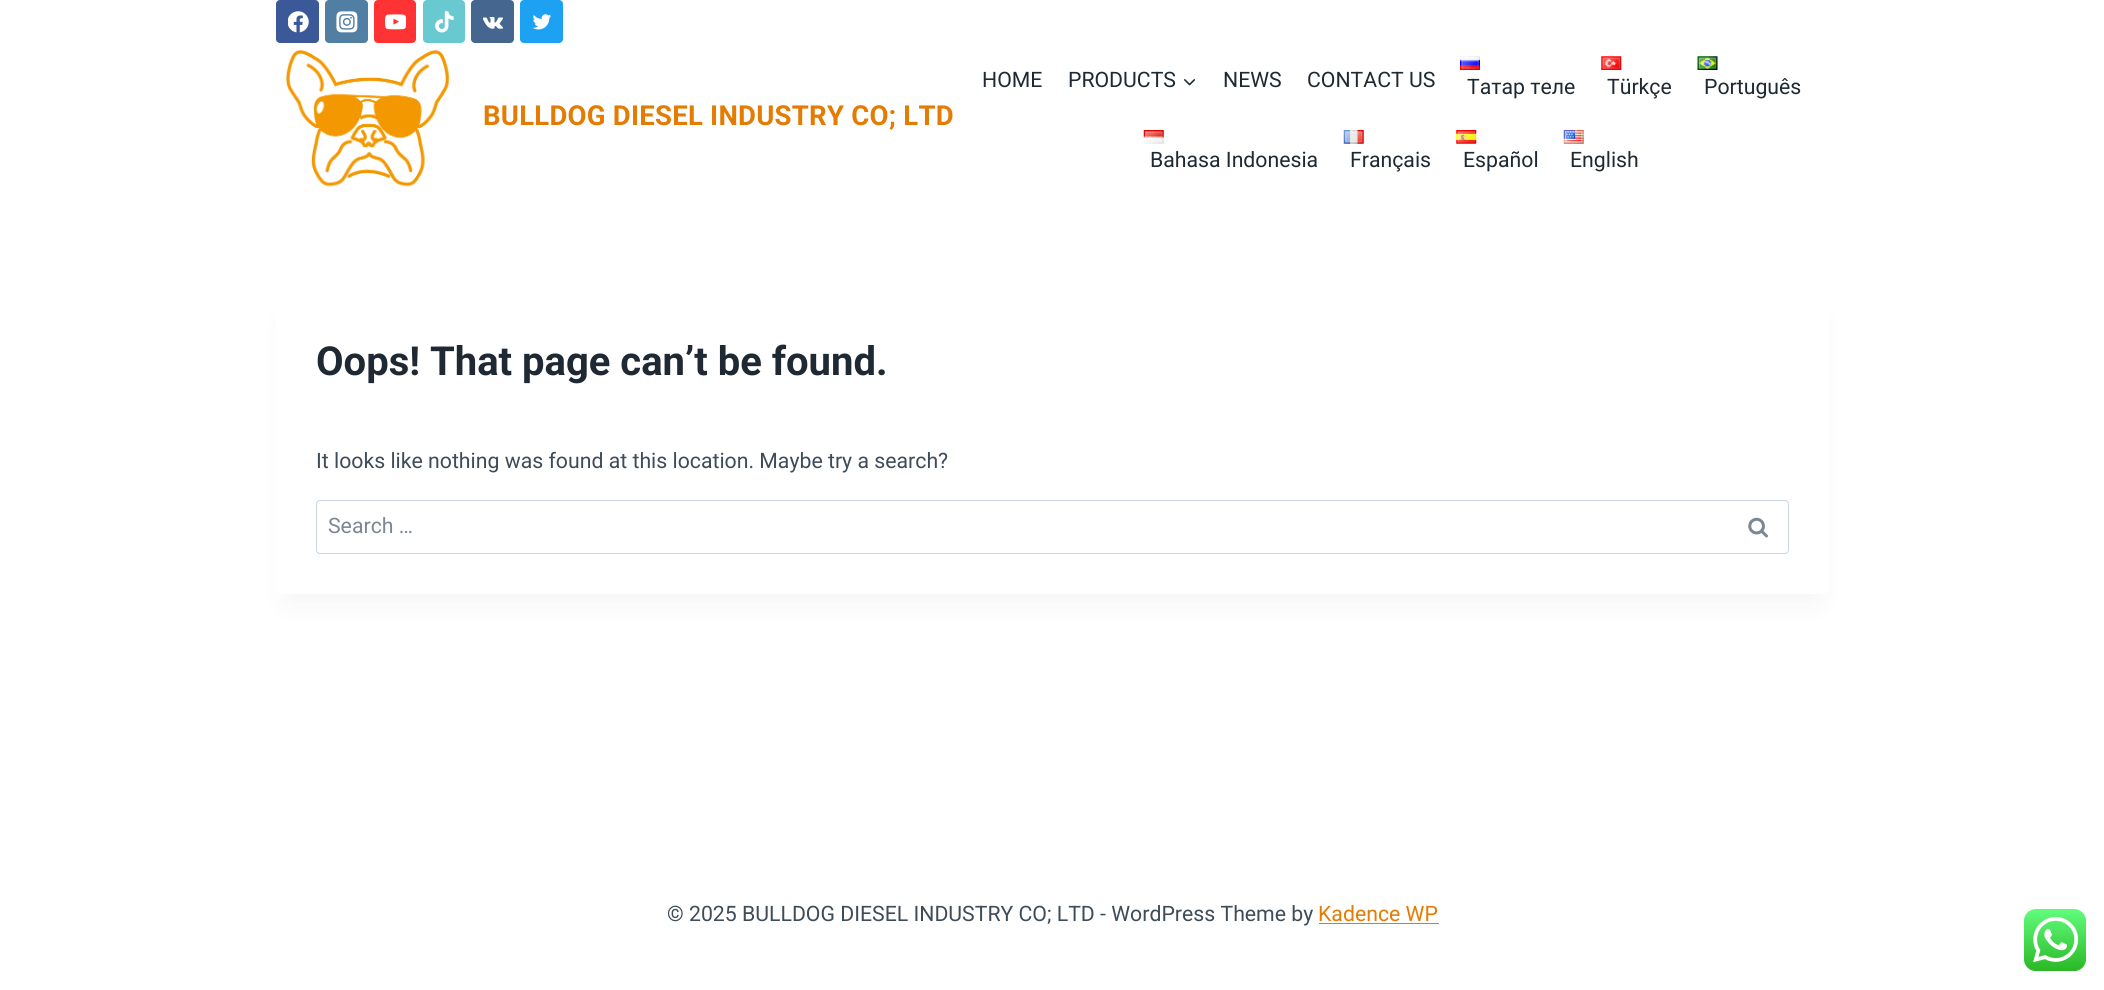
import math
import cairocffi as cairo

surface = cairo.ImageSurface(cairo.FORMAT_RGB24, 2104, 990)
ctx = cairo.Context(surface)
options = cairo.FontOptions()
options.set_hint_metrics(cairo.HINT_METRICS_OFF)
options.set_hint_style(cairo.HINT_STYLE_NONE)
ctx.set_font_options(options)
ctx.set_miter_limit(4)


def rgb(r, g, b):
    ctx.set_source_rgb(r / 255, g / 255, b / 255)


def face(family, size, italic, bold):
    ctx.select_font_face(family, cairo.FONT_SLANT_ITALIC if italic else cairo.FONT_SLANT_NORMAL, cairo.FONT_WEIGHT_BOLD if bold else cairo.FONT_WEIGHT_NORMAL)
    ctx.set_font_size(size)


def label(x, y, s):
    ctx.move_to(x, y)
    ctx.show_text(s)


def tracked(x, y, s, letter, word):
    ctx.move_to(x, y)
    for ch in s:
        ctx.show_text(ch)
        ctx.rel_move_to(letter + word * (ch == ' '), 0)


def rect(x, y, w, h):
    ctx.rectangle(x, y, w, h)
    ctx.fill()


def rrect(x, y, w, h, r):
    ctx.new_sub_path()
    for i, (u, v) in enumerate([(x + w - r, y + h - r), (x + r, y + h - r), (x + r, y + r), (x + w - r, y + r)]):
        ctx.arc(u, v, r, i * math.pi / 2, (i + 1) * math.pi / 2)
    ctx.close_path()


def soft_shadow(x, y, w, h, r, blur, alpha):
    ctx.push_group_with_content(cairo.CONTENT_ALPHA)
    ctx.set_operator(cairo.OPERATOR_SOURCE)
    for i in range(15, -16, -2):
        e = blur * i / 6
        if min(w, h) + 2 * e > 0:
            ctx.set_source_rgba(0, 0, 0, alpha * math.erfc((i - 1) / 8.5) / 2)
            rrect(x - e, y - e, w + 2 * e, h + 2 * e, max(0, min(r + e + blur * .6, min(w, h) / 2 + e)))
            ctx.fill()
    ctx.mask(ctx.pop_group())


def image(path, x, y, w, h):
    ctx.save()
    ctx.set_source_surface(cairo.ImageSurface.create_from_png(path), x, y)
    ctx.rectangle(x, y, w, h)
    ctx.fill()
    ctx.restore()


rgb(255, 255, 255)
ctx.paint()
rgb(59, 89, 152)
rrect(276, 0, 43, 43, 4)
ctx.fill()
image('image0.png', 288, 11, 21, 22)
rgb(81, 127, 164)
rrect(325, 0, 43, 43, 4)
ctx.fill()
image('image1.png', 336, 11, 22, 22)
rgb(255, 51, 51)
rrect(374, 0, 42, 43, 4)
ctx.fill()
image('image2.png', 385, 14, 21, 16)
rgb(105, 201, 208)
rrect(423, 0, 42, 43, 4)
ctx.fill()
image('image3.png', 435, 11, 19, 22)
rgb(69, 102, 142)
rrect(471, 0, 43, 43, 4)
ctx.fill()
image('image4.png', 483, 17, 20, 12)
rgb(29, 161, 242)
rrect(520, 0, 43, 43, 4)
ctx.fill()
image('image5.png', 532, 14, 20, 16)
image('image6.png', 285, 50, 165, 137)
face('Roboto', 27.5, 0, 1)
rgb(228, 123, 2)
tracked(483, 125, 'BULLDOG DIESEL INDUSTRY CO; LTD', 0.25, 0)
face('Roboto', 21.25, 0, 0)
rgb(31, 41, 51)
label(982, 87, 'HOME')
label(1068, 87, 'PRODUCTS')
image('image7.png', 1184, 79, 12, 7)
label(1223, 87, 'NEWS')
label(1307, 87, 'CONTACT US')
image('image8.png', 1460, 56, 20, 14)
label(1467, 94, 'Татар теле')
image('image9.png', 1601, 56, 21, 14)
label(1607, 94, 'Türkçe')
image('image10.png', 1697, 56, 21, 14)
label(1704, 94, 'Português')
image('image11.png', 1143, 130, 21, 14)
label(1150, 167, 'Bahasa Indonesia')
image('image12.png', 1343, 130, 21, 14)
label(1350, 167, 'Français')
image('image13.png', 1456, 130, 21, 14)
label(1463, 167, 'Español')
image('image14.png', 1563, 130, 21, 14)
label(1570, 167, 'English')
rgb(0, 0, 0)
soft_shadow(289, 323, 1527, 277, 0, 15.5, 0.05)
rgb(255, 255, 255)
rrect(276, 291, 1553, 303, 5)
ctx.fill()
face('Roboto', 40, 0, 1)
rgb(31, 41, 51)
label(316, 375, 'Oops! That page can’t be found.')
face('Roboto', 21.25, 0, 0)
rgb(62, 76, 89)
label(316, 468, 'It looks like nothing was found at this location. Maybe try a search?')
rrect(316.5, 500.5, 1472, 53, 3.5)
rgb(203, 213, 224)
ctx.set_line_width(1)
ctx.stroke()
rgb(123, 135, 148)
label(328, 533, 'Search …')
image('image15.png', 1748, 517, 20, 21)
rgb(62, 76, 89)
label(667, 921, '© 2025 BULLDOG DIESEL INDUSTRY CO; LTD - WordPress Theme by')
rgb(228, 123, 2)
label(1318, 921, 'Kadence WP')
rect(1319, 923, 120, 1)
image('image16.png', 2024, 909, 62, 62)
surface.write_to_png('render.png')
